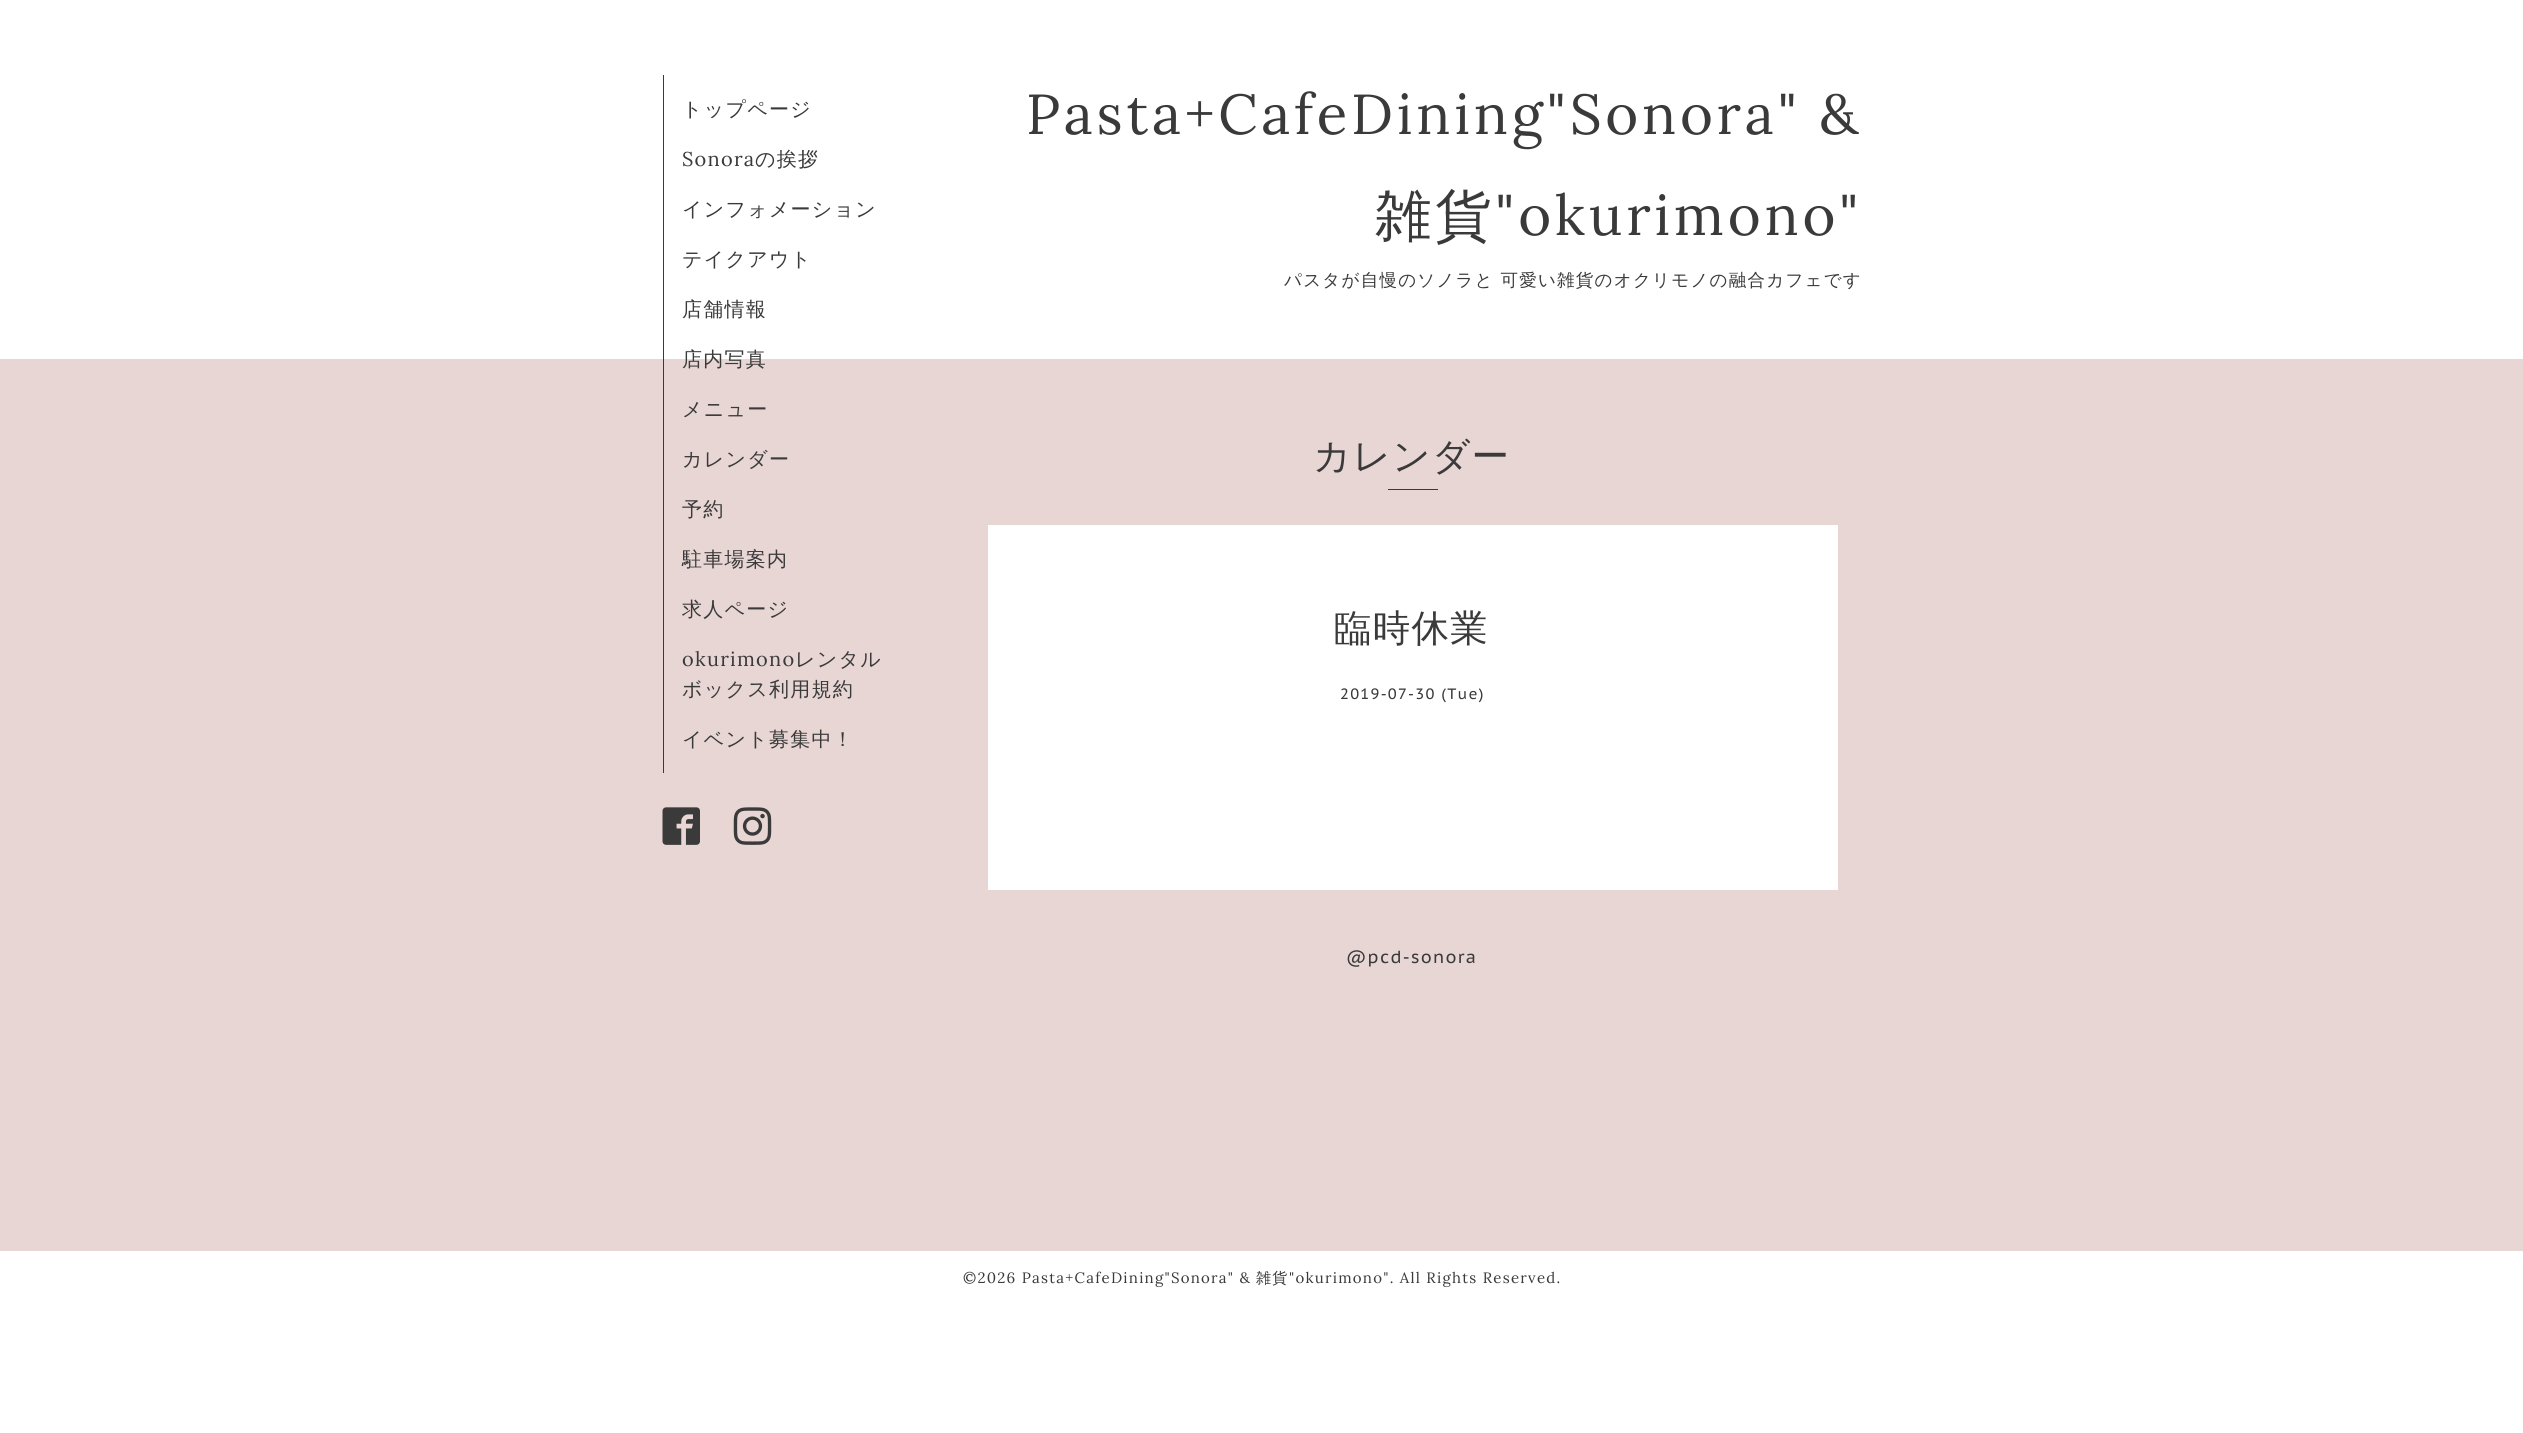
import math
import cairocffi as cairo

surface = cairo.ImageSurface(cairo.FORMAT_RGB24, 2523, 1433)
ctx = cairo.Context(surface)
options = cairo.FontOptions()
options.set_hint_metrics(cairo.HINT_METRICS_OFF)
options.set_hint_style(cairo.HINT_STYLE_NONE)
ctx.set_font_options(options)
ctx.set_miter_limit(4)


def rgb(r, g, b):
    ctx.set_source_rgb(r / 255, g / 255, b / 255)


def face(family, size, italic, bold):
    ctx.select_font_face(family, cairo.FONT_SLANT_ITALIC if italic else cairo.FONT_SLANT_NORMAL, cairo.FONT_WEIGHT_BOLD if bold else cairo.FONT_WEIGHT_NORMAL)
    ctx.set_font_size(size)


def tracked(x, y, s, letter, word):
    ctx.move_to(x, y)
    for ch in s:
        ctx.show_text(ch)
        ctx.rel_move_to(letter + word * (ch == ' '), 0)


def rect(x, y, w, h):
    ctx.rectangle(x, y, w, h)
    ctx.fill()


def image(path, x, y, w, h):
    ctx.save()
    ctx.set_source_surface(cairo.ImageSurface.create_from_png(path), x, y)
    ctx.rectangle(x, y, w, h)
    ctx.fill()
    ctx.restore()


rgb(255, 255, 255)
ctx.paint()
rgb(232, 214, 212)
rect(0, 359, 2523, 892)
rgb(58, 58, 58)
rect(663, 75, 1, 698)
face('WenQuanYi Zen Hei Medium', 20, 0, 0)
tracked(682, 116, 'トップページ', 1.25, 0)
face('Lora', 20, 0, 0)
tracked(682, 166, 'Sonora', 1.25, 0)
face('WenQuanYi Zen Hei Medium', 20, 0, 0)
tracked(755, 166, 'の挨拶', 1.25, 0)
tracked(682, 216, 'インフォメーション', 1.25, 0)
tracked(682, 266, 'テイクアウト', 1.25, 0)
tracked(682, 316, '店舗情報', 1.25, 0)
tracked(682, 366, '店内写真', 1.25, 0)
tracked(682, 416, 'メニュー', 1.25, 0)
tracked(682, 466, 'カレンダー', 1.25, 0)
tracked(682, 516, '予約', 1.25, 0)
tracked(682, 566, '駐車場案内', 1.25, 0)
tracked(682, 616, '求人ページ', 1.25, 0)
face('Lora', 20, 0, 0)
tracked(682, 666, 'okurimono', 1.25, 0)
face('WenQuanYi Zen Hei Medium', 20, 0, 0)
tracked(795, 666, 'レンタル', 1.25, 0)
tracked(682, 696, 'ボックス利用規約', 1.25, 0)
tracked(682, 746, 'イベント募集中！', 1.25, 0)
image('image0.png', 662, 807, 38, 38)
image('image1.png', 733, 807, 39, 38)
face('Lora', 56.25, 0, 0)
tracked(1026, 134, 'Pasta+CafeDining"Sonora" &', 3.75, 0)
face('WenQuanYi Zen Hei Medium', 56.25, 0, 0)
tracked(1375, 235, '雑貨', 3.75, 0)
face('Lora', 56.25, 0, 0)
tracked(1495, 235, '"okurimono"', 3.75, 0)
face('WenQuanYi Zen Hei Medium', 17.5, 0, 0)
tracked(1284, 286, 'パスタが自慢のソノラと 可愛い雑貨のオクリモノの融合カフェです', 1.25, 0)
face('WenQuanYi Zen Hei Medium', 37.5, 0, 0)
tracked(1313, 469, 'カレンダー', 1.25, 0)
rect(1388, 489, 50, 1)
rgb(255, 255, 255)
rect(988, 525, 850, 365)
rgb(58, 58, 58)
tracked(1334, 641, '臨時休業', 1.25, 0)
face('PT Sans Caption', 15, 0, 0)
tracked(1340, 699, '2019-07-30 (Tue)', 1.25, 0)
face('PT Sans Caption', 17.5, 0, 0)
tracked(1346, 963, '@pcd-sonora', 1.25, 0)
face('Lora', 15, 0, 0)
tracked(963, 1283, '©2026 Pasta+CafeDining"Sonora" &', 1.25, 0)
face('WenQuanYi Zen Hei Medium', 15, 0, 0)
tracked(1256, 1283, '雑貨', 1.25, 0)
face('Lora', 15, 0, 0)
tracked(1289, 1283, '"okurimono". All Rights Reserved.', 1.25, 0)
surface.write_to_png('render.png')
